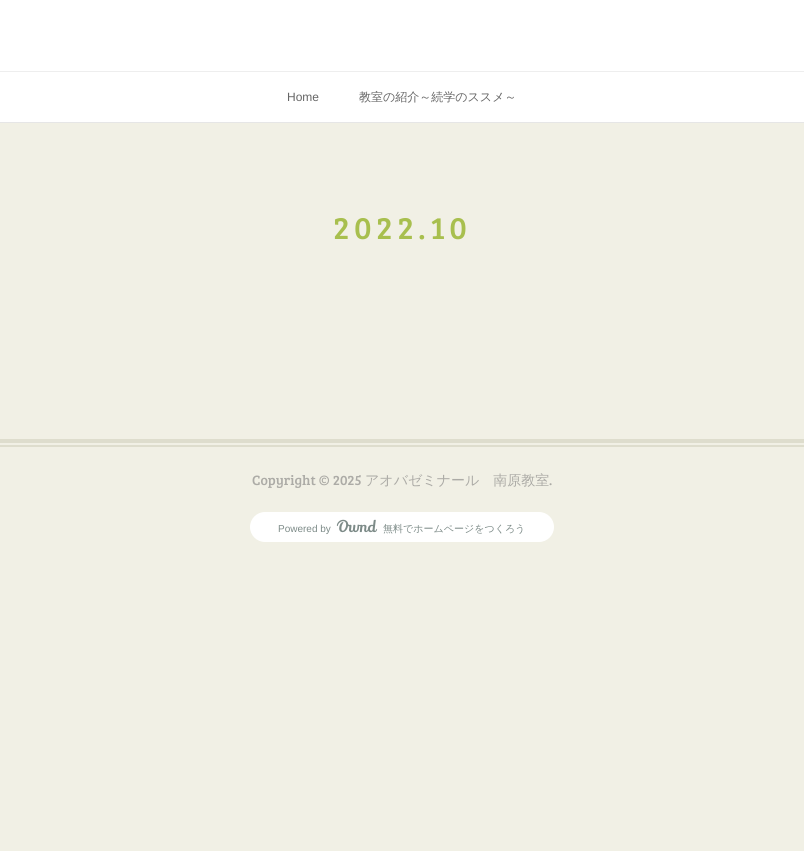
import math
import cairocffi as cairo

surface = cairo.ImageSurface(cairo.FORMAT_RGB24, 804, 851)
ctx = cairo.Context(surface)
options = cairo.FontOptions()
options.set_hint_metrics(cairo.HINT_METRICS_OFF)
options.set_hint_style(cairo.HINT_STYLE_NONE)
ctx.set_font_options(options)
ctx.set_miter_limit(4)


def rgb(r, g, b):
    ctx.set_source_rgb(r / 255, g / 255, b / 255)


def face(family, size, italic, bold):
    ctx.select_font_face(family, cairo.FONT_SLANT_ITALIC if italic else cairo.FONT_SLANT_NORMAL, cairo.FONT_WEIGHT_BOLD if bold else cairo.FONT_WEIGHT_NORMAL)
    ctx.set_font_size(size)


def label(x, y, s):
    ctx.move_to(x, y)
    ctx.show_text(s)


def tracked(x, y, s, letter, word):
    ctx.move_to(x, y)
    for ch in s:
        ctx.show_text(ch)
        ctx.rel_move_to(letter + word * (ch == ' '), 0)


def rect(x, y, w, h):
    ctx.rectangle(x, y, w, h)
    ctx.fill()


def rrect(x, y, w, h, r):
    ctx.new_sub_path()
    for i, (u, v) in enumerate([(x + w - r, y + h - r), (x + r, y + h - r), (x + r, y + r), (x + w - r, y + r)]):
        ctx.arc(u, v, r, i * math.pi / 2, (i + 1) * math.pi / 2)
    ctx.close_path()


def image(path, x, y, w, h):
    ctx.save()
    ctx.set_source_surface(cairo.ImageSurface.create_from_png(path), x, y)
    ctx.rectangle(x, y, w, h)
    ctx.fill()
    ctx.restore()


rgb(241, 240, 229)
ctx.paint()
rgb(255, 255, 255)
rect(0, 0, 804, 71)
rgb(238, 238, 238)
rect(0, 71, 804, 1)
rgb(255, 255, 255)
rect(0, 72, 804, 50)
rgb(230, 230, 230)
rect(0, 122, 804, 1)
face('Liberation Sans', 12, 0, 0)
rgb(102, 102, 102)
label(287, 101, 'Home')
face('WenQuanYi Zen Hei Medium', 12, 0, 0)
label(359, 101, '教室の紹介～続学のススメ～')
face('Bree Serif', 32, 0, 0)
rgb(168, 191, 78)
tracked(333, 239, '2022.10', 4.75, 0)
rgb(222, 221, 205)
rect(0, 439, 804, 4)
rect(0, 445, 804, 2)
face('Bree Serif', 14, 0, 0)
rgb(172, 171, 166)
label(252, 485, 'Copyright © 2025')
face('WenQuanYi Zen Hei Medium', 14, 0, 0)
label(365, 485, 'アオバゼミナール　南原教室')
face('Bree Serif', 14, 0, 0)
label(549, 485, '.')
rgb(255, 255, 255)
rrect(250, 512, 304, 30, 15)
ctx.fill()
face('Liberation Sans', 10, 0, 0)
rgb(125, 139, 136)
label(278, 532, 'Powered by')
image('image0.png', 336, 519, 42, 14)
face('WenQuanYi Zen Hei Medium', 10, 0, 0)
label(383, 532, '無料でホームページをつくろう')
surface.write_to_png('render.png')
